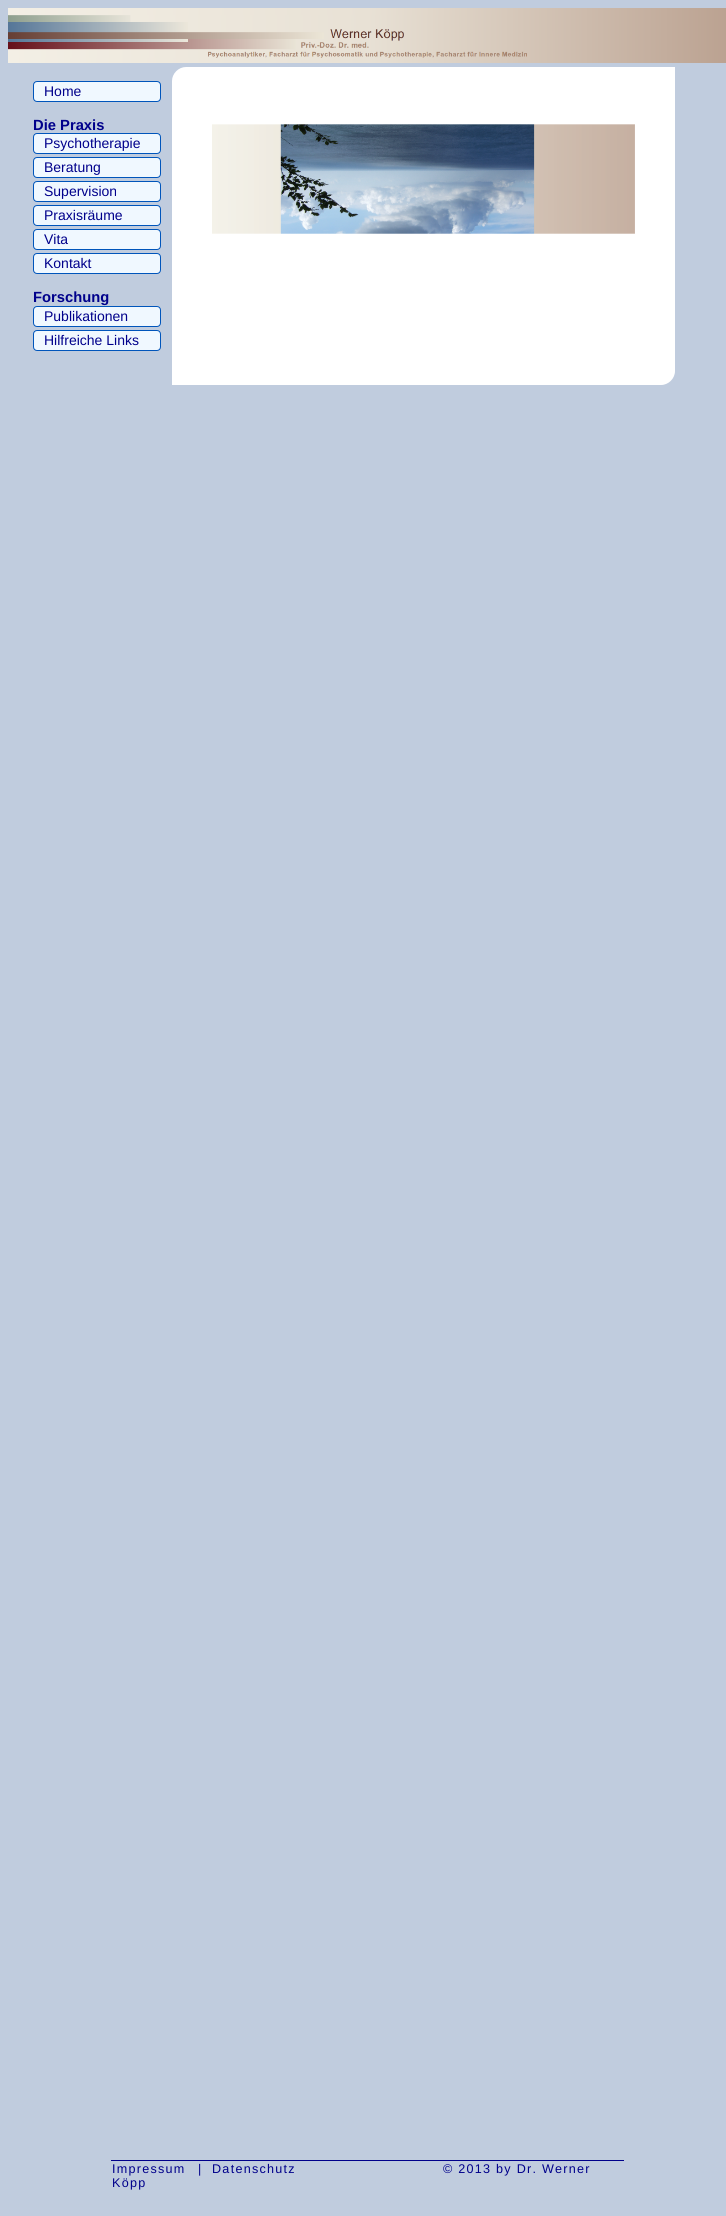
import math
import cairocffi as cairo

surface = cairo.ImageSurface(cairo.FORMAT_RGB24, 726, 2216)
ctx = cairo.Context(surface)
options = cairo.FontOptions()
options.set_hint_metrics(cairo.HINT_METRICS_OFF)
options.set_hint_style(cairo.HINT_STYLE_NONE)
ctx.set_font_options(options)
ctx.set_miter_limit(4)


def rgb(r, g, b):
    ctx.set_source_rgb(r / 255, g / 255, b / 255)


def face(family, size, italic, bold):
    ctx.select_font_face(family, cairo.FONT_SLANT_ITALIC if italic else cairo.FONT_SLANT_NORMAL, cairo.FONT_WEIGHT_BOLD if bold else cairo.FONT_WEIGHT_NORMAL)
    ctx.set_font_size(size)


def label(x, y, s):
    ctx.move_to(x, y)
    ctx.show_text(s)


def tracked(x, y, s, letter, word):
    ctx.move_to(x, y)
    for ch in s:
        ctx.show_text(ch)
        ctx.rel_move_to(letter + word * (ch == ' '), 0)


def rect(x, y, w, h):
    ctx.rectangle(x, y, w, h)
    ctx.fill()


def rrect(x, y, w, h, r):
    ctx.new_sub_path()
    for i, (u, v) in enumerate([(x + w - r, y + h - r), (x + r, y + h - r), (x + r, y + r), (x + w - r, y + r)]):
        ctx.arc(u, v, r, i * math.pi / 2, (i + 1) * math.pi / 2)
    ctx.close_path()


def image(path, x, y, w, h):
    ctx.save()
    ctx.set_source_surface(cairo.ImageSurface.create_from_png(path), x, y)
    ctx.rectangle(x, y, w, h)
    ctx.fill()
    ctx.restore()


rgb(192, 204, 222)
ctx.paint()
gradient = cairo.LinearGradient(8, 36, 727, 35)
gradient.add_color_stop_rgba(0, 0.953, 0.937, 0.898, 1)
gradient.add_color_stop_rgba(0.5, 0.91, 0.882, 0.835, 1)
gradient.add_color_stop_rgba(1, 0.733, 0.635, 0.569, 1)
ctx.set_source(gradient)
rect(8, 8, 718, 55)
image('image0.png', 8, 15, 519, 43)
rgb(240, 248, 255)
rrect(33.5, 81.5, 127, 20, 3.5)
ctx.fill_preserve()
rgb(0, 85, 187)
ctx.set_line_width(1)
ctx.stroke()
face('Liberation Sans', 14, 0, 0)
rgb(0, 0, 139)
label(44, 96, 'Home')
face('Liberation Sans', 14.75, 0, 1)
label(33, 130, 'Die Praxis')
rgb(240, 248, 255)
rrect(33.5, 133.5, 127, 20, 3.5)
ctx.fill_preserve()
rgb(0, 85, 187)
ctx.stroke()
face('Liberation Sans', 14, 0, 0)
rgb(0, 0, 139)
label(44, 148, 'Psychotherapie')
rgb(240, 248, 255)
rrect(33.5, 157.5, 127, 20, 3.5)
ctx.fill_preserve()
rgb(0, 85, 187)
ctx.stroke()
rgb(0, 0, 139)
label(44, 172, 'Beratung')
rgb(240, 248, 255)
rrect(33.5, 181.5, 127, 20, 3.5)
ctx.fill_preserve()
rgb(0, 85, 187)
ctx.stroke()
rgb(0, 0, 139)
label(44, 196, 'Supervision')
rgb(240, 248, 255)
rrect(33.5, 205.5, 127, 20, 3.5)
ctx.fill_preserve()
rgb(0, 85, 187)
ctx.stroke()
rgb(0, 0, 139)
label(44, 220, 'Praxisräume')
rgb(240, 248, 255)
rrect(33.5, 229.5, 127, 20, 3.5)
ctx.fill_preserve()
rgb(0, 85, 187)
ctx.stroke()
rgb(0, 0, 139)
label(44, 244, 'Vita')
rgb(240, 248, 255)
rrect(33.5, 253.5, 127, 20, 3.5)
ctx.fill_preserve()
rgb(0, 85, 187)
ctx.stroke()
rgb(0, 0, 139)
label(44, 268, 'Kontakt')
face('Liberation Sans', 14.75, 0, 1)
label(33, 302, 'Forschung')
rgb(240, 248, 255)
rrect(33.5, 306.5, 127, 20, 3.5)
ctx.fill_preserve()
rgb(0, 85, 187)
ctx.stroke()
face('Liberation Sans', 14, 0, 0)
rgb(0, 0, 139)
label(44, 321, 'Publikationen')
rgb(240, 248, 255)
rrect(33.5, 330.5, 127, 20, 3.5)
ctx.fill_preserve()
rgb(0, 85, 187)
ctx.stroke()
rgb(0, 0, 139)
label(44, 345, 'Hilfreiche Links')
rgb(255, 255, 255)
ctx.new_path()
ctx.move_to(186, 67)
ctx.line_to(675, 67)
ctx.line_to(675, 371)
ctx.curve_to(675, 378.5, 668.5, 385, 661, 385)
ctx.line_to(172, 385)
ctx.line_to(172, 81)
ctx.curve_to(172, 73.5, 178.5, 67, 186, 67)
ctx.close_path()
ctx.fill()
image('image1.png', 212, 124, 423, 110)
rgb(0, 0, 139)
rect(111, 2160, 513, 1)
face('Liberation Sans', 12.6, 0, 0)
tracked(112, 2173, 'Impressum', 1.25, 0)
tracked(198, 2173, '|  Datenschutz', 1.25, 0)
tracked(443, 2173, '© 2013 by Dr. Werner', 1.25, 0)
tracked(112, 2187, 'Köpp', 1.25, 0)
surface.write_to_png('render.png')
